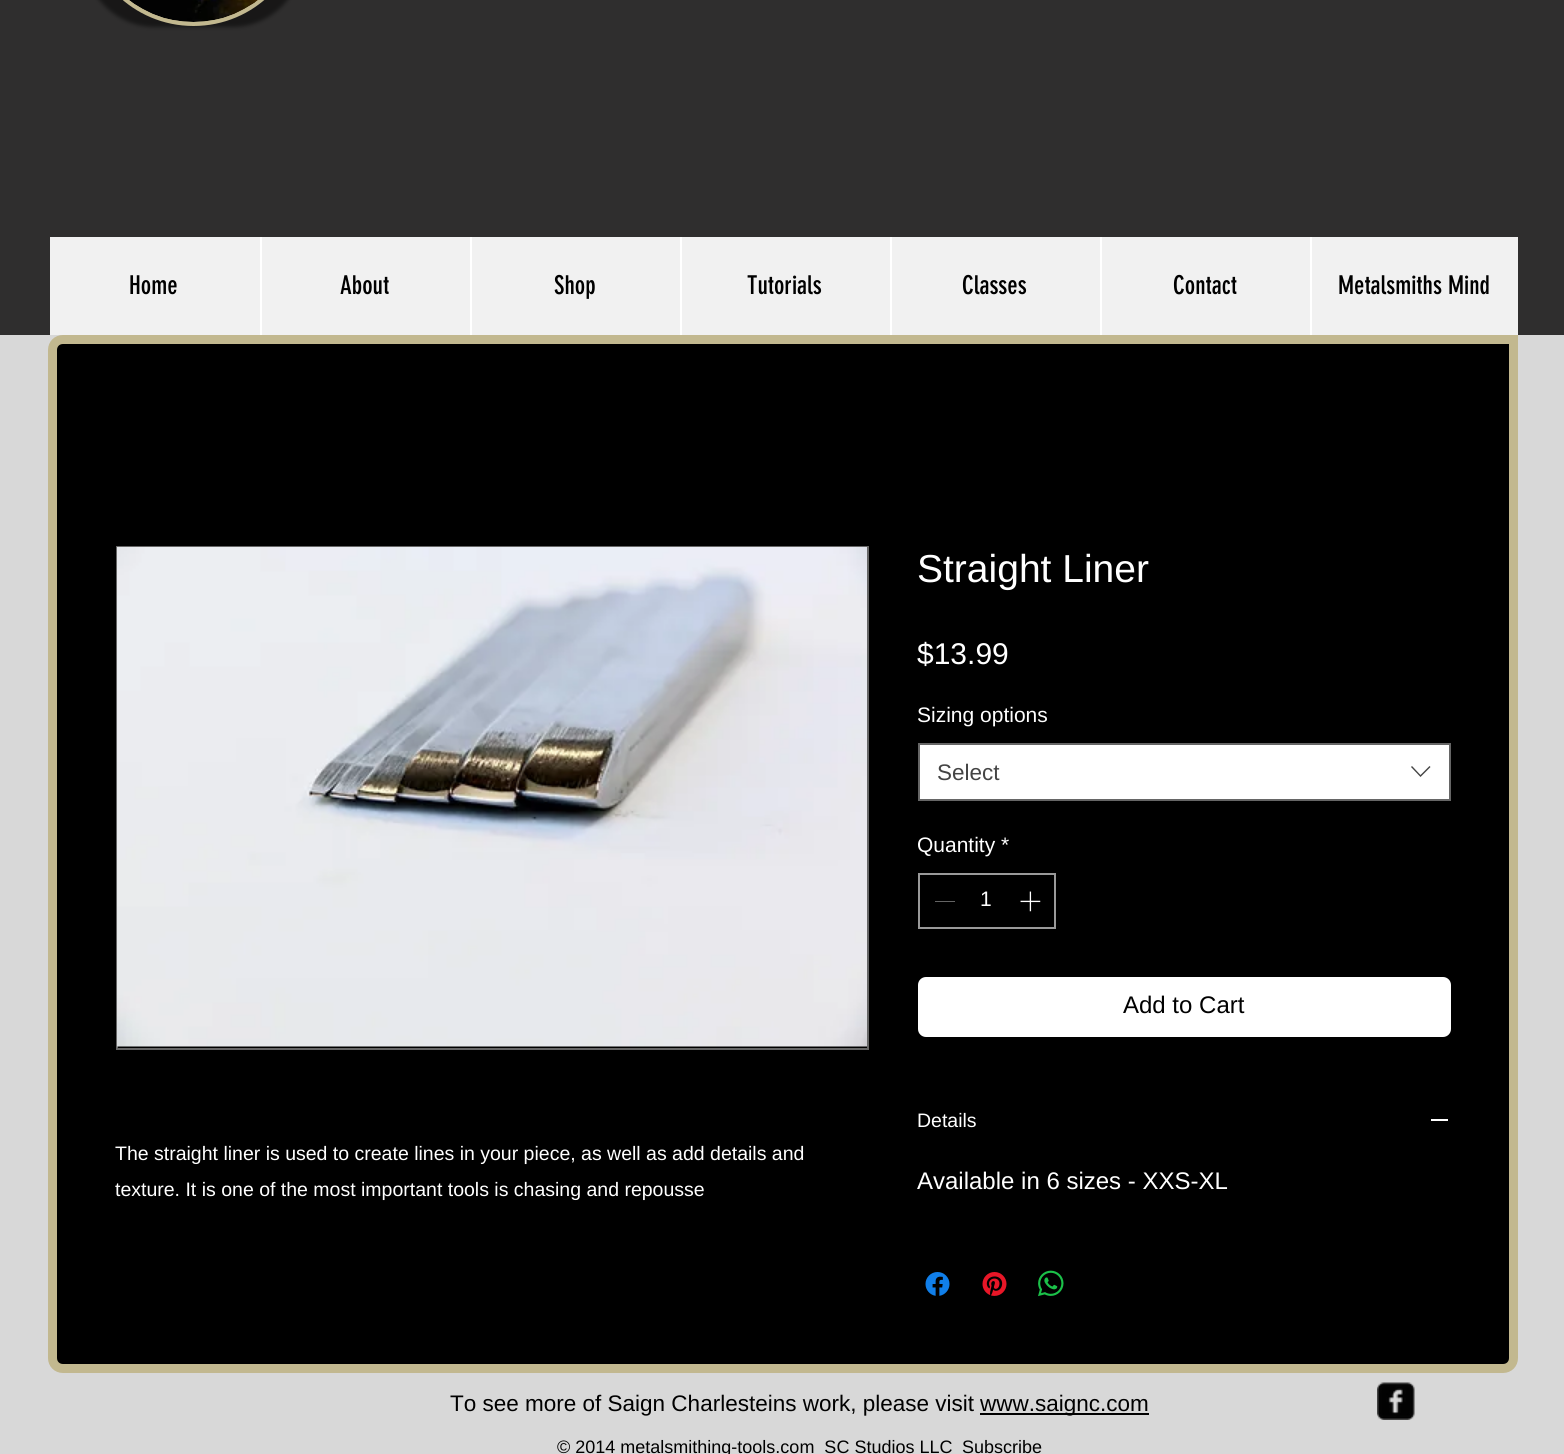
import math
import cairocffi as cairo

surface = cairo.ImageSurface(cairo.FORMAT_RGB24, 1564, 1454)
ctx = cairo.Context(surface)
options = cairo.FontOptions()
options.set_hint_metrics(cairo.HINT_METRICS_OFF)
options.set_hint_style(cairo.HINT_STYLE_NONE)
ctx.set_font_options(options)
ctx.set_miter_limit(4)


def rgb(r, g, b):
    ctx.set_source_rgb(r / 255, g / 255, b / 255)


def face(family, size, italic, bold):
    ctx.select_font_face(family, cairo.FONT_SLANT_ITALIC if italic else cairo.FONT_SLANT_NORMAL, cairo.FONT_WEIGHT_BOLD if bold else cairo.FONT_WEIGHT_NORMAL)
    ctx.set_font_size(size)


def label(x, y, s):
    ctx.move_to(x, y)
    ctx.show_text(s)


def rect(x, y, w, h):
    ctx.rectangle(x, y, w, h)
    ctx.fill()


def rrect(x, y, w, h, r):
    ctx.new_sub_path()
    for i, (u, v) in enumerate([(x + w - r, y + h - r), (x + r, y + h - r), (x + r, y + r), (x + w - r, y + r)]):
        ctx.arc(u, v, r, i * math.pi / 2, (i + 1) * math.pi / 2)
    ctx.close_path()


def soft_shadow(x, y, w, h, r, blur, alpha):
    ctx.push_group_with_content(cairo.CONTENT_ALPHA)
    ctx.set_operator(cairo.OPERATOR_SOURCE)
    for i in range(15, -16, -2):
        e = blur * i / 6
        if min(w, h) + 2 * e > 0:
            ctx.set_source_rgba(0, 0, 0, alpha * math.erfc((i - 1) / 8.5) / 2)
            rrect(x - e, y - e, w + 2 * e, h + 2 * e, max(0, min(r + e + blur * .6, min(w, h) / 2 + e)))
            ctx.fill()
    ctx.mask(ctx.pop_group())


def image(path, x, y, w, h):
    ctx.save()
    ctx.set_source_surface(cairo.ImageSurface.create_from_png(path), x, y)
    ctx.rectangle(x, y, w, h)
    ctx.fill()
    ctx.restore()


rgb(216, 216, 216)
ctx.paint()
rgb(47, 46, 46)
rect(0, 0, 1564, 335)
rgb(0, 0, 0)
soft_shadow(84, -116, 219, 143, 109.5, 2, 0.5)
rgb(194, 184, 143)
rrect(85.5, -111.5, 216, 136, 108)
ctx.fill_preserve()
ctx.set_line_width(3)
ctx.stroke()
image('image0.png', 129, 0, 129, 22)
rgb(241, 241, 241)
rect(50, 237, 1468, 98)
face('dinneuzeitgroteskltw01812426', 25.5, 0, 0)
rgb(0, 0, 0)
label(129, 294, 'Home')
rgb(255, 255, 255)
rect(260, 237, 2, 98)
rgb(0, 0, 0)
label(340, 294, 'About')
rgb(255, 255, 255)
rect(470, 237, 2, 98)
rgb(0, 0, 0)
label(554, 294, 'Shop')
rgb(255, 255, 255)
rect(680, 237, 2, 98)
rgb(0, 0, 0)
label(747, 294, 'Tutorials')
rgb(255, 255, 255)
rect(890, 237, 2, 98)
rgb(0, 0, 0)
label(962, 294, 'Classes')
rgb(255, 255, 255)
rect(1100, 237, 2, 98)
rgb(0, 0, 0)
label(1173, 294, 'Contact')
rgb(255, 255, 255)
rect(1310, 237, 2, 98)
rgb(0, 0, 0)
label(1338, 294, 'Metalsmiths Mind')
ctx.new_path()
ctx.move_to(63, 339.5)
ctx.line_to(1513.5, 339.5)
ctx.line_to(1513.5, 1358)
ctx.curve_to(1513.5, 1364, 1509, 1368.5, 1503, 1368.5)
ctx.line_to(63, 1368.5)
ctx.curve_to(57, 1368.5, 52.5, 1364, 52.5, 1358)
ctx.line_to(52.5, 350)
ctx.curve_to(52.5, 344, 57, 339.5, 63, 339.5)
ctx.close_path()
ctx.fill_preserve()
rgb(194, 184, 143)
ctx.set_line_width(9)
ctx.stroke()
ctx.rectangle(117, 547, 751, 502)
rgb(102, 102, 102)
ctx.set_line_width(2)
ctx.stroke()
image('image1.png', 117, 547, 750, 500)
face('Liberation Sans', 19.5, 0, 0)
rgb(255, 255, 255)
label(115, 1160, 'The straight liner is used to create lines in your piece, as well as add details and')
label(115, 1196, 'texture. It is one of the most important tools is chasing and repousse')
face('Liberation Sans', 39, 0, 0)
label(917, 582, 'Straight Liner')
face('Liberation Sans', 30, 0, 0)
label(917, 664, '$13.99')
face('Liberation Sans', 21, 0, 0)
label(917, 722, 'Sizing options')
ctx.rectangle(919, 744, 531, 56)
ctx.fill_preserve()
rgb(102, 102, 102)
ctx.stroke()
face('Liberation Sans', 22.5, 0, 0)
rgb(68, 68, 68)
label(937, 780, 'Select')
ctx.set_fill_rule(cairo.FILL_RULE_EVEN_ODD)
ctx.new_path()
ctx.move_to(1429.5, 766)
ctx.line_to(1430.5, 767)
ctx.line_to(1420.5, 777)
ctx.line_to(1411, 767)
ctx.line_to(1412, 766)
ctx.line_to(1420.5, 775)
ctx.close_path()
ctx.fill()
face('Liberation Sans', 21, 0, 0)
rgb(255, 255, 255)
label(917, 852, 'Quantity *')
ctx.rectangle(919, 874, 136, 54)
rgb(153, 153, 153)
ctx.stroke()
rgb(100, 100, 100)
rect(935, 901, 20, 1)
rgb(255, 255, 255)
label(980, 906, '1')
image('image2.png', 1020, 891, 21, 21)
rrect(918, 977, 533, 60, 8)
ctx.fill()
face('Liberation Sans', 24, 0, 0)
rgb(0, 0, 0)
label(1123, 1013, 'Add to Cart')
face('Liberation Sans', 19.5, 0, 0)
rgb(255, 255, 255)
label(917, 1127, 'Details')
rect(1431, 1119, 17, 2)
face('Liberation Sans', 24, 0, 0)
label(917, 1189, 'Available in 6 sizes - XXS-XL')
image('image3.png', 925, 1272, 25, 24)
image('image4.png', 982, 1272, 25, 24)
image('image5.png', 1038, 1270, 26, 27)
face('Liberation Sans', 22.5, 0, 0)
rgb(0, 0, 0)
label(450, 1411, 'To see more of Saign Charlesteins work, please visit')
rect(980, 1413, 169, 2)
label(980, 1411, 'www.saignc.com')
face('Liberation Sans', 18, 0, 0)
label(557, 1453, '© 2014 metalsmithing-tools.com  SC Studios LLC')
label(962, 1453, 'Subscribe')
image('image6.png', 1377, 1382, 38, 38)
surface.write_to_png('render.png')
